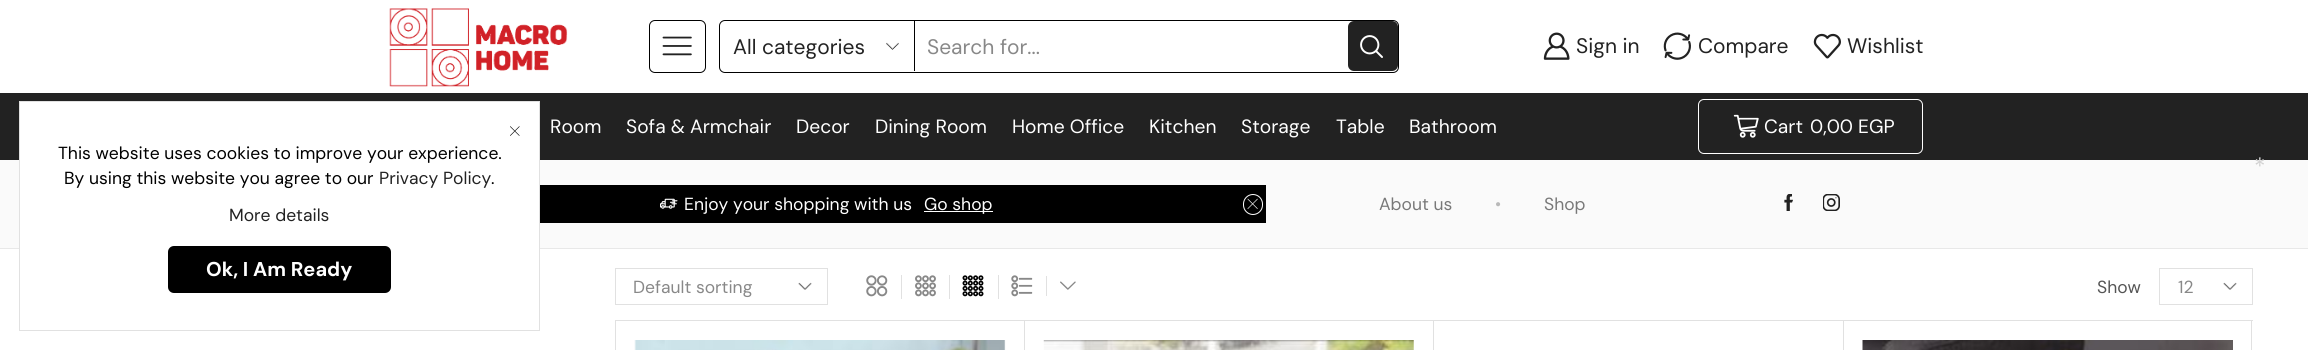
import math
import cairocffi as cairo

surface = cairo.ImageSurface(cairo.FORMAT_RGB24, 2308, 350)
ctx = cairo.Context(surface)
options = cairo.FontOptions()
options.set_hint_metrics(cairo.HINT_METRICS_OFF)
options.set_hint_style(cairo.HINT_STYLE_NONE)
ctx.set_font_options(options)
ctx.set_miter_limit(4)


def rgb(r, g, b):
    ctx.set_source_rgb(r / 255, g / 255, b / 255)


def face(family, size, italic, bold):
    ctx.select_font_face(family, cairo.FONT_SLANT_ITALIC if italic else cairo.FONT_SLANT_NORMAL, cairo.FONT_WEIGHT_BOLD if bold else cairo.FONT_WEIGHT_NORMAL)
    ctx.set_font_size(size)


def label(x, y, s):
    ctx.move_to(x, y)
    ctx.show_text(s)


def rect(x, y, w, h):
    ctx.rectangle(x, y, w, h)
    ctx.fill()


def rrect(x, y, w, h, r):
    ctx.new_sub_path()
    for i, (u, v) in enumerate([(x + w - r, y + h - r), (x + r, y + h - r), (x + r, y + r), (x + w - r, y + r)]):
        ctx.arc(u, v, r, i * math.pi / 2, (i + 1) * math.pi / 2)
    ctx.close_path()


def image(path, x, y, w, h):
    ctx.save()
    ctx.set_source_surface(cairo.ImageSurface.create_from_png(path), x, y)
    ctx.rectangle(x, y, w, h)
    ctx.fill()
    ctx.restore()


rgb(255, 255, 255)
ctx.paint()
rgb(34, 34, 34)
rect(0, 93, 2308, 67)
rgb(250, 250, 250)
rect(0, 160, 2308, 88)
rgb(232, 232, 232)
rect(0, 248, 2308, 1)
rgb(255, 255, 255)
rect(20, 102, 519, 147)
ctx.rectangle(19.5, 101.5, 520, 229)
rgb(225, 225, 225)
ctx.set_line_width(1)
ctx.stroke()
image('image0.png', 510, 126, 10, 10)
face('DM Sans', 17.5, 0, 0)
rgb(0, 0, 0)
label(58, 159, 'This website uses cookies to improve your experience.')
label(64, 184, 'By using this website you agree to our')
rgb(34, 34, 34)
label(379, 184, 'Privacy Policy')
rgb(0, 0, 0)
label(491, 184, '.')
rgb(34, 34, 34)
label(229, 221, 'More details')
rgb(0, 0, 0)
rrect(168, 246, 223, 47, 6)
ctx.fill()
face('DM Sans', 20, 0, 1)
rgb(255, 255, 255)
label(206, 276, 'Ok, I Am Ready')
image('image1.png', 389, 8, 179, 79)
rrect(649.5, 20.5, 56, 52, 5.5)
rgb(0, 0, 0)
ctx.stroke()
image('image2.png', 662, 36, 30, 20)
rrect(719.5, 20.5, 679, 52, 5.5)
ctx.stroke()
image('image3.png', 886, 42, 13, 8)
rect(914, 21, 1, 50)
face('DM Sans', 21, 0, 0)
rgb(34, 34, 34)
label(733, 54, 'All categories')
rgb(136, 136, 136)
label(927, 54, 'Search for...')
rgb(34, 34, 34)
rrect(1348, 21, 50, 50, 6)
ctx.fill()
image('image4.png', 1360, 35, 23, 23)
image('image5.png', 1543, 32, 27, 28)
label(1576, 53, 'Sign in')
face('DM Sans', 24, 0, 0)
rgb(210, 210, 210)
label(2254, 175, '*')
image('image6.png', 1663, 32, 28, 28)
face('DM Sans', 21, 0, 0)
rgb(34, 34, 34)
label(1698, 53, 'Compare')
image('image7.png', 1813, 33, 28, 26)
label(1847, 53, 'Wishlist')
face('DM Sans', 19.25, 0, 0)
rgb(255, 255, 255)
label(550, 133, 'Room')
label(626, 133, 'Sofa & Armchair')
label(796, 133, 'Decor')
label(875, 133, 'Dining Room')
label(1012, 133, 'Home Office')
label(1149, 133, 'Kitchen')
label(1241, 133, 'Storage')
label(1336, 133, 'Table')
label(1409, 133, 'Bathroom')
rrect(1698.5, 99.5, 224, 54, 5.5)
ctx.stroke()
image('image8.png', 1733, 114, 26, 24)
label(1764, 133, 'Cart')
label(1810, 133, '0,00 EGP')
rgb(0, 0, 0)
rect(540, 185, 726, 38)
image('image9.png', 660, 198, 18, 11)
face('DM Sans', 17.5, 0, 0)
rgb(255, 255, 255)
label(684, 210, 'Enjoy your shopping with us')
rect(924, 211, 69, 1)
label(924, 210, 'Go shop')
rrect(1243.5, 194.5, 19, 20, 9.5)
ctx.stroke()
image('image10.png', 1247, 198, 11, 11)
rgb(120, 120, 120)
label(1379, 210, 'About us')
face('Liberation Serif', 17.5, 0, 0)
rgb(185, 185, 185)
label(1495, 210, '•')
face('DM Sans', 17.5, 0, 0)
rgb(120, 120, 120)
label(1544, 210, 'Shop')
image('image11.png', 1784, 194, 9, 17)
image('image12.png', 1823, 194, 17, 17)
image('image13.png', 798, 282, 14, 8)
ctx.rectangle(615.5, 268.5, 212, 36)
rgb(225, 225, 225)
ctx.stroke()
rgb(136, 136, 136)
label(633, 293, 'Default sorting')
image('image14.png', 866, 275, 22, 22)
rgb(225, 225, 225)
rect(901, 275, 1, 24)
image('image15.png', 915, 275, 21, 22)
rect(949, 275, 1, 24)
image('image16.png', 962, 275, 22, 22)
rect(998, 275, 1, 24)
image('image17.png', 1011, 275, 22, 22)
rect(1046, 276, 1, 20)
image('image18.png', 1060, 281, 16, 9)
rgb(85, 85, 85)
label(2097, 293, 'Show')
image('image13.png', 2223, 282, 14, 8)
ctx.rectangle(2159.5, 268.5, 93, 36)
rgb(225, 225, 225)
ctx.stroke()
rgb(136, 136, 136)
label(2178, 293, '12')
rgb(225, 225, 225)
rect(615, 320, 1638, 1)
rect(615, 320, 1, 30)
rect(1024, 321, 1, 29)
image('image19.png', 634, 340, 372, 10)
rect(1433, 321, 1, 29)
image('image20.png', 1043, 340, 371, 10)
rect(1843, 321, 1, 29)
rect(2251, 321, 1, 29)
image('image21.png', 1862, 340, 371, 10)
surface.write_to_png('render.png')
